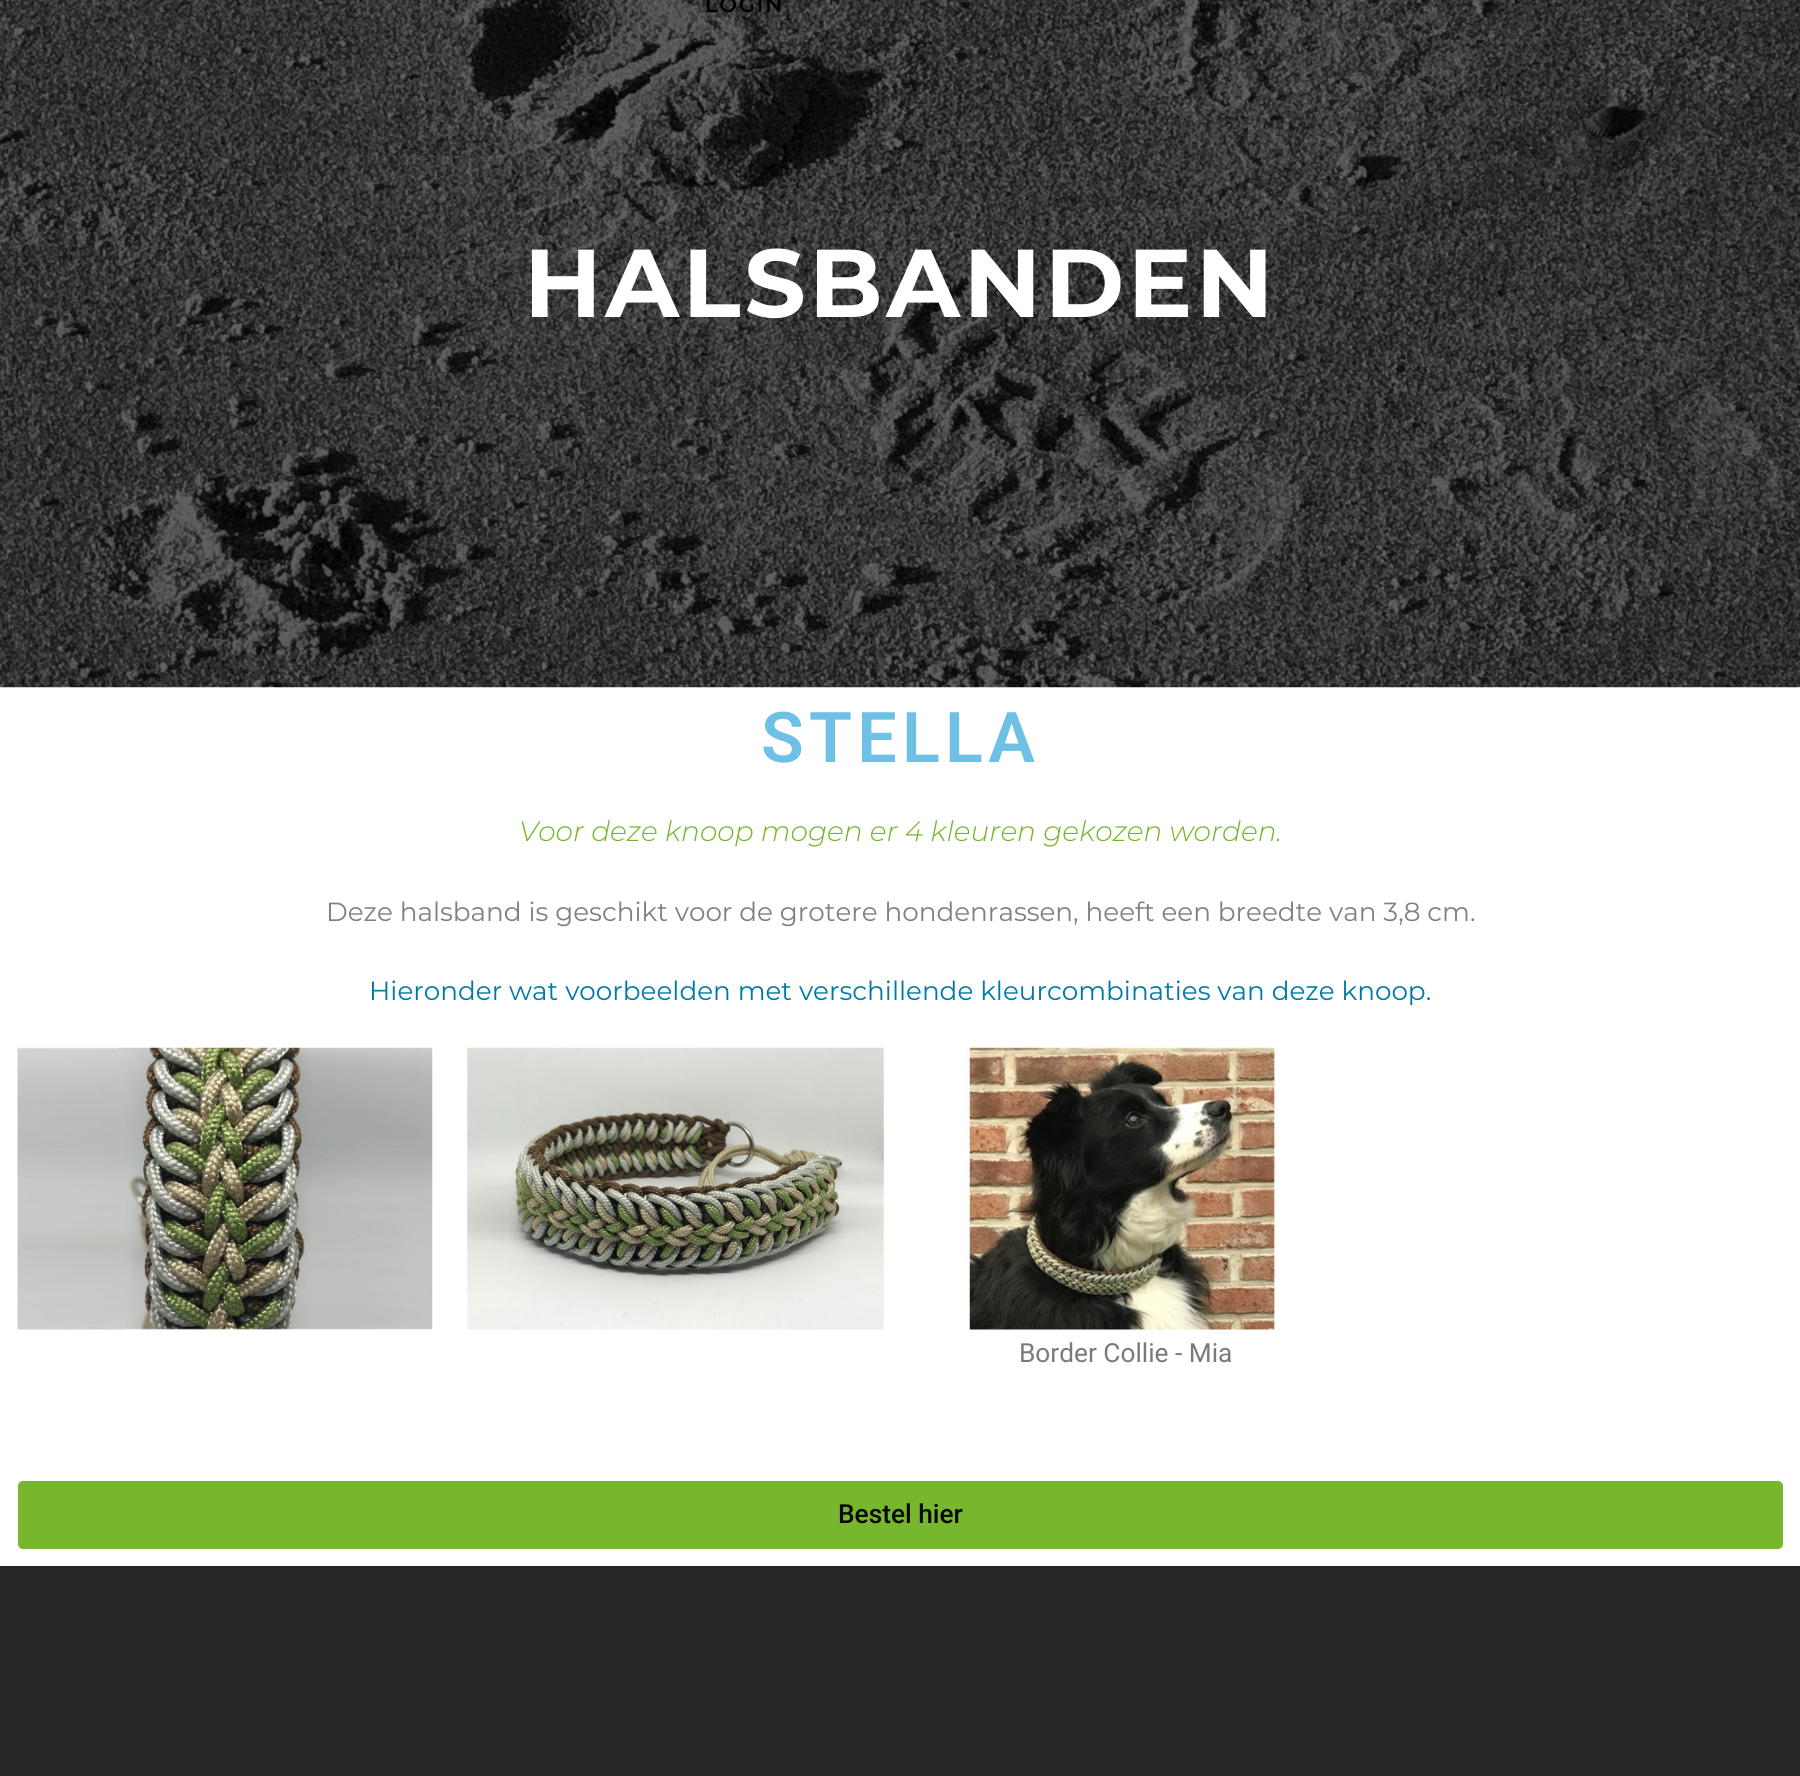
import math
import cairocffi as cairo

surface = cairo.ImageSurface(cairo.FORMAT_RGB24, 1800, 1776)
ctx = cairo.Context(surface)
options = cairo.FontOptions()
options.set_hint_metrics(cairo.HINT_METRICS_OFF)
options.set_hint_style(cairo.HINT_STYLE_NONE)
ctx.set_font_options(options)
ctx.set_miter_limit(4)


def rgb(r, g, b):
    ctx.set_source_rgb(r / 255, g / 255, b / 255)


def face(family, size, italic, bold):
    ctx.select_font_face(family, cairo.FONT_SLANT_ITALIC if italic else cairo.FONT_SLANT_NORMAL, cairo.FONT_WEIGHT_BOLD if bold else cairo.FONT_WEIGHT_NORMAL)
    ctx.set_font_size(size)


def label(x, y, s):
    ctx.move_to(x, y)
    ctx.show_text(s)


def tracked(x, y, s, letter, word):
    ctx.move_to(x, y)
    for ch in s:
        ctx.show_text(ch)
        ctx.rel_move_to(letter + word * (ch == ' '), 0)


def rect(x, y, w, h):
    ctx.rectangle(x, y, w, h)
    ctx.fill()


def rrect(x, y, w, h, r):
    ctx.new_sub_path()
    for i, (u, v) in enumerate([(x + w - r, y + h - r), (x + r, y + h - r), (x + r, y + r), (x + w - r, y + r)]):
        ctx.arc(u, v, r, i * math.pi / 2, (i + 1) * math.pi / 2)
    ctx.close_path()


def image(path, x, y, w, h):
    ctx.save()
    ctx.set_source_surface(cairo.ImageSurface.create_from_png(path), x, y)
    ctx.rectangle(x, y, w, h)
    ctx.fill()
    ctx.restore()


rgb(255, 255, 255)
ctx.paint()
image('image0.png', 0, 0, 1800, 688)
face('Montserrat SemiBold', 21, 0, 0)
rgb(0, 0, 0)
tracked(705, 12, 'LOGIN', 1.75, 0)
face('Montserrat', 96.25, 0, 1)
rgb(255, 255, 255)
tracked(524, 317, 'HALSBANDEN', 3.5, 0)
face('Roboto SemiBold', 70, 0, 0)
rgb(110, 193, 228)
tracked(761, 762, 'STELLA', 5.25, 0)
face('Montserrat Light', 28, 1, 0)
rgb(116, 181, 40)
label(519, 841, 'Voor deze knoop mogen er 4 kleuren gekozen worden.')
face('Montserrat', 26.25, 0, 0)
rgb(128, 128, 128)
label(326, 921, 'Deze halsband is geschikt voor de grotere hondenrassen, heeft een breedte van 3,8 cm.')
rgb(0, 122, 165)
label(369, 1000, 'Hieronder wat voorbeelden met verschillende kleurcombinaties van deze knoop.')
image('image1.png', 17, 1047, 416, 283)
image('image2.png', 467, 1047, 417, 283)
image('image3.png', 964, 1047, 311, 283)
face('Roboto', 26.25, 0, 0)
rgb(122, 122, 122)
label(1019, 1362, 'Border Collie - Mia')
rgb(118, 183, 45)
rrect(18, 1481, 1765, 68, 5)
ctx.fill()
face('Roboto Medium', 26.25, 0, 0)
rgb(7, 7, 7)
label(838, 1523, 'Bestel hier')
rgb(38, 38, 38)
rect(0, 1566, 1800, 210)
surface.write_to_png('render.png')
